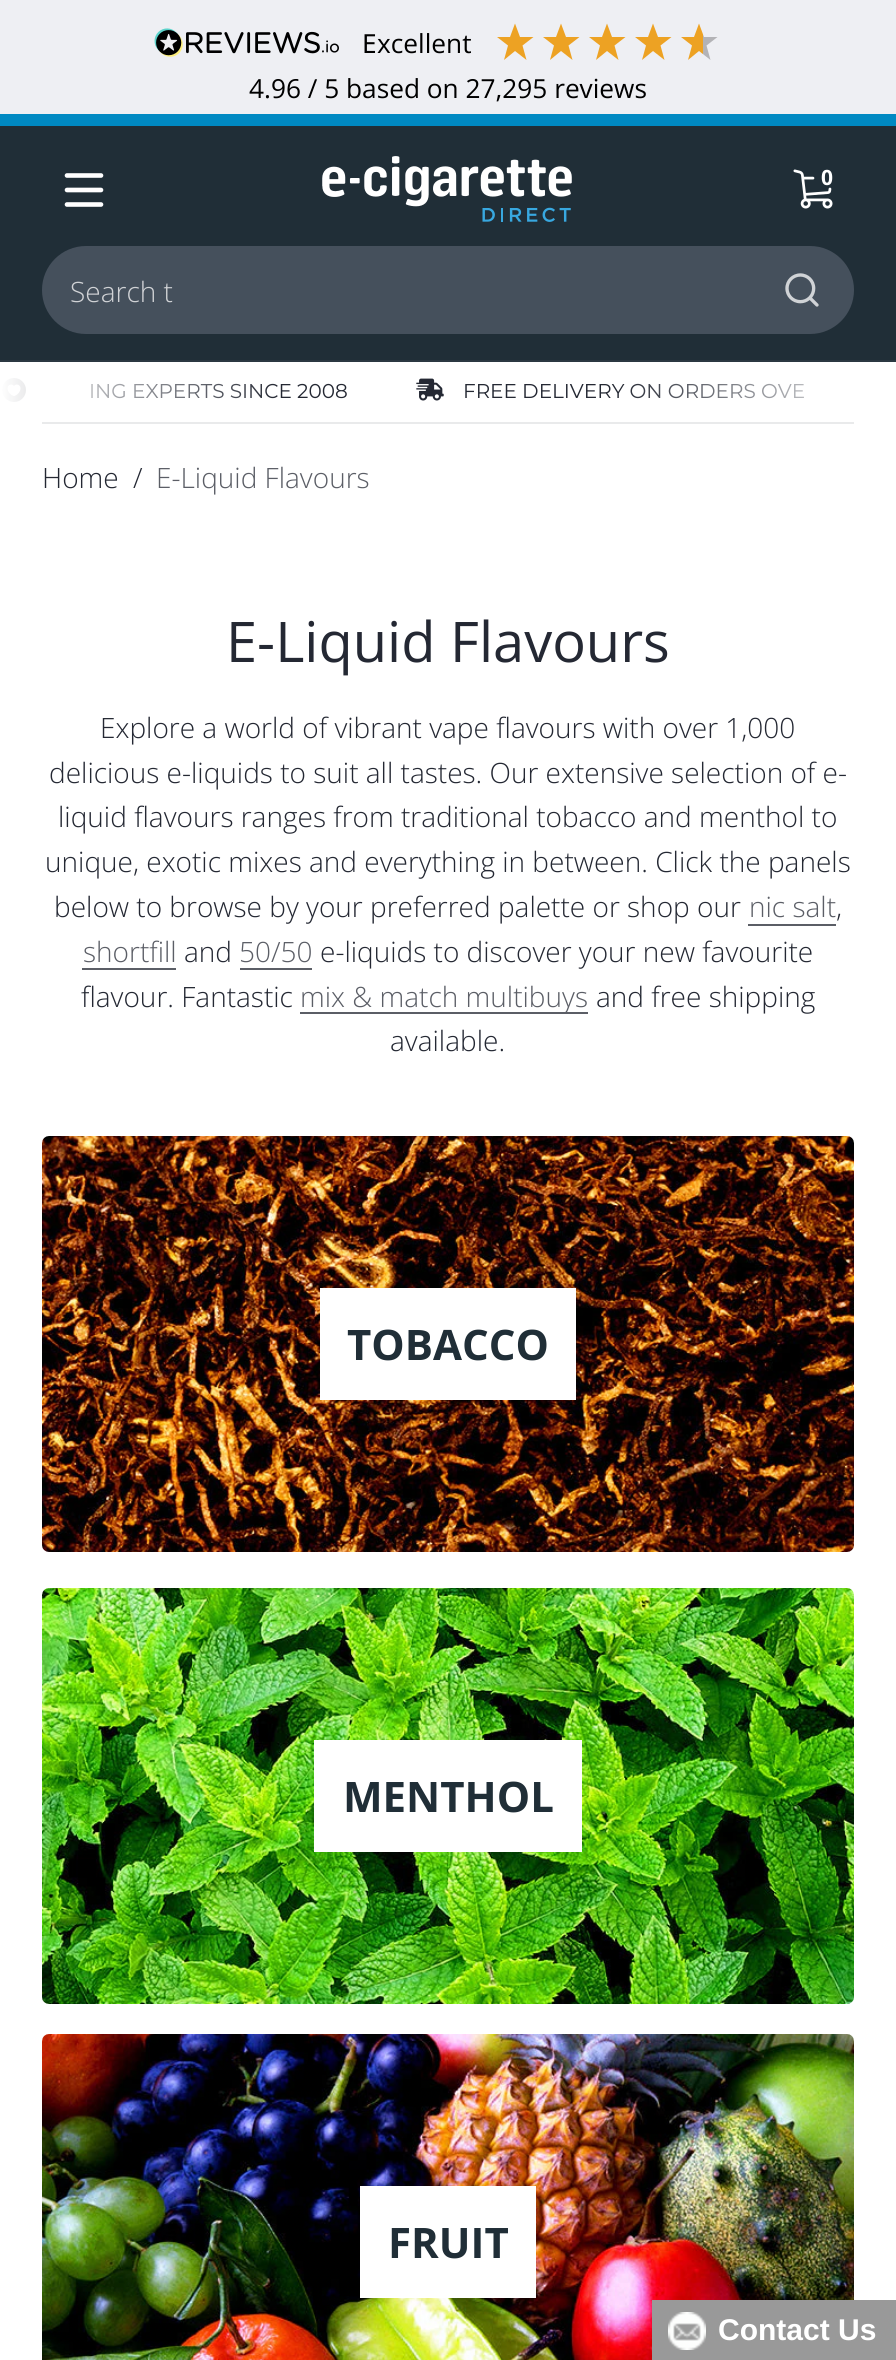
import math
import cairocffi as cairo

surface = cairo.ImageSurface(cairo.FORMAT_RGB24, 896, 2360)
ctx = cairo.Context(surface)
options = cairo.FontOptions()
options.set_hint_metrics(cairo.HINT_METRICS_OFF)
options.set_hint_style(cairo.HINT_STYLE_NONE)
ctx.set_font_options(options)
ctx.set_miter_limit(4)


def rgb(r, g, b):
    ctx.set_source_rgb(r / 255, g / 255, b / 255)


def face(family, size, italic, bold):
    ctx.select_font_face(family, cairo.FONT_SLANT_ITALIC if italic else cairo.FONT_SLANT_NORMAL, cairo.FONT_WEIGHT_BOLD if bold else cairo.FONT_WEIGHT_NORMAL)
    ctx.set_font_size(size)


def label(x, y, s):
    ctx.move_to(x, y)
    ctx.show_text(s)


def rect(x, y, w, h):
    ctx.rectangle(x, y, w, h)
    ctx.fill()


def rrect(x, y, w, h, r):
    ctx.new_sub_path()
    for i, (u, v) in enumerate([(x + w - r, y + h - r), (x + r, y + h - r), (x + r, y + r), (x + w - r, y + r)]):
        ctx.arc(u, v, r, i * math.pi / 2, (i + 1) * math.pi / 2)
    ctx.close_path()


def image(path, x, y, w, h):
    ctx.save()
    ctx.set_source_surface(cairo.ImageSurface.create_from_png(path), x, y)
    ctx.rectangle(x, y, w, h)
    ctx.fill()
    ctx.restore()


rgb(255, 255, 255)
ctx.paint()
rgb(238, 239, 243)
rect(0, 0, 896, 114)
image('image0.png', 154, 28, 185, 29)
face('Noto Sans', 26.25, 0, 0)
rgb(0, 0, 0)
label(362, 53, 'E')
face('Open Sans', 26.25, 0, 0)
label(377, 53, 'xcellent')
rgb(237, 162, 35)
ctx.new_path()
ctx.move_to(515, 23.5)
ctx.line_to(510, 37)
ctx.line_to(497, 37)
ctx.line_to(508, 45.5)
ctx.line_to(504, 60)
ctx.line_to(515, 51)
ctx.line_to(526.5, 60)
ctx.line_to(522.5, 45.5)
ctx.line_to(533.5, 37)
ctx.line_to(520, 37)
ctx.close_path()
ctx.fill()
ctx.new_path()
ctx.move_to(561, 23.5)
ctx.line_to(556, 37)
ctx.line_to(543, 37)
ctx.line_to(554, 45.5)
ctx.line_to(550, 60)
ctx.line_to(561, 51)
ctx.line_to(572.5, 60)
ctx.line_to(568.5, 45.5)
ctx.line_to(579.5, 37)
ctx.line_to(566, 37)
ctx.close_path()
ctx.fill()
ctx.new_path()
ctx.move_to(607, 23.5)
ctx.line_to(602, 37)
ctx.line_to(589, 37)
ctx.line_to(600, 45.5)
ctx.line_to(596, 60)
ctx.line_to(607, 51)
ctx.line_to(618.5, 60)
ctx.line_to(614.5, 45.5)
ctx.line_to(625.5, 37)
ctx.line_to(612, 37)
ctx.close_path()
ctx.fill()
ctx.new_path()
ctx.move_to(653, 23.5)
ctx.line_to(648, 37)
ctx.line_to(635, 37)
ctx.line_to(646, 45.5)
ctx.line_to(642, 60)
ctx.line_to(653, 51)
ctx.line_to(664.5, 60)
ctx.line_to(660.5, 45.5)
ctx.line_to(671.5, 37)
ctx.line_to(658, 37)
ctx.close_path()
ctx.fill()
gradient = cairo.LinearGradient(675, 41, 721, 41)
gradient.add_color_stop_rgba(0.6, 0.929, 0.635, 0.137, 1)
gradient.add_color_stop_rgba(0.6, 0.702, 0.702, 0.714, 1)
ctx.set_source(gradient)
ctx.new_path()
ctx.move_to(699, 23.5)
ctx.line_to(694, 37)
ctx.line_to(681, 37)
ctx.line_to(692, 45.5)
ctx.line_to(688, 60)
ctx.line_to(699, 51)
ctx.line_to(710.5, 60)
ctx.line_to(706.5, 45.5)
ctx.line_to(717.5, 37)
ctx.line_to(704, 37)
ctx.close_path()
ctx.fill()
rgb(0, 0, 0)
label(249, 98, '4.96 / 5 based on 27,295 reviews')
rgb(0, 137, 194)
rect(0, 114, 896, 12)
rgb(32, 46, 55)
rect(0, 126, 896, 234)
ctx.new_path()
ctx.move_to(67, 175.5)
ctx.line_to(101, 175.5)
ctx.move_to(67, 190)
ctx.line_to(101, 190)
ctx.move_to(67, 204.5)
ctx.line_to(101, 204.5)
rgb(255, 255, 255)
ctx.set_line_width(4.6)
ctx.set_line_cap(cairo.LINE_CAP_ROUND)
ctx.stroke()
image('image1.png', 322, 156, 250, 66)
image('image2.png', 793, 169, 40, 40)
face('Open Sans', 21, 0, 1)
label(821, 185, '0')
rgb(69, 80, 92)
rrect(42, 246, 812, 88, 44)
ctx.fill()
face('Open Sans Light', 28, 0, 0)
rgb(209, 211, 214)
label(70, 302, 'Search t')
image('image3.png', 785, 273, 34, 34)
rgb(43, 56, 65)
rect(0, 360, 896, 2)
image('image4.png', 2, 378, 24, 24)
face('Montserrat', 20, 0, 0)
rgb(36, 40, 51)
label(89, 398, 'ING EXPERTS SINCE 2008')
gradient = cairo.LinearGradient(0, 392, 280, 392)
gradient.add_color_stop_rgba(0, 1, 1, 1, 1)
gradient.add_color_stop_rgba(1, 1, 1, 1, 0)
ctx.set_source(gradient)
rect(2, 378, 272, 24)
image('image5.png', 416, 378, 28, 23)
rgb(36, 40, 51)
label(463, 398, 'FREE DELIVERY ON ORDERS OVE')
gradient = cairo.LinearGradient(896, 392, 616, 392)
gradient.add_color_stop_rgba(0, 1, 1, 1, 1)
gradient.add_color_stop_rgba(1, 1, 1, 1, 0)
ctx.set_source(gradient)
rect(622, 383, 183, 16)
rgb(233, 234, 235)
rect(42, 422, 812, 2)
face('Open Sans Light', 28, 0, 0)
rgb(36, 40, 51)
label(42, 488, 'Home')
label(133, 488, '/')
rgb(91, 94, 102)
label(156, 488, 'E-Liquid Flavours')
face('Open Sans', 56, 0, 0)
rgb(36, 40, 51)
label(226, 662, 'E-Liquid Flavours')
face('Open Sans Light', 28, 0, 0)
label(100, 738, 'Explore a world of vibrant vape flavours with over 1,000')
label(49, 783, 'delicious e-liquids to suit all tastes. Our extensive selection of e-')
label(58, 827, 'liquid flavours ranges from traditional tobacco and menthol to')
label(45, 872, 'unique, exotic mixes and everything in between. Click the panels')
label(54, 917, 'below to browse by your preferred palette or shop our')
rgb(91, 94, 102)
label(749, 917, 'nic salt')
rect(748, 924, 88, 2)
rgb(36, 40, 51)
label(836, 917, ',')
rgb(91, 94, 102)
label(83, 962, 'shortfill')
rect(82, 968, 94, 2)
rgb(36, 40, 51)
label(184, 962, 'and')
rgb(91, 94, 102)
label(239, 962, '50/50')
rect(240, 968, 72, 2)
rgb(36, 40, 51)
label(320, 962, 'e-liquids to discover your new favourite')
label(81, 1007, 'flavour. Fantastic')
rgb(91, 94, 102)
rect(300, 1012, 288, 2)
label(300, 1007, 'mix & match multibuys')
rgb(36, 40, 51)
label(596, 1007, 'and free shipping')
label(390, 1051, 'available.')
image('image6.png', 42, 1136, 812, 416)
rgb(255, 255, 255)
rect(320, 1288, 256, 112)
face('Open Sans', 42, 0, 1)
rgb(32, 46, 55)
label(347, 1360, 'TOBACCO')
image('image7.png', 42, 1588, 812, 416)
rgb(255, 255, 255)
rect(314, 1740, 268, 112)
rgb(32, 46, 55)
label(343, 1812, 'MENTHOL')
image('image8.png', 42, 2034, 812, 326)
rgb(255, 255, 255)
rect(360, 2186, 176, 112)
rgb(32, 46, 55)
label(388, 2258, 'FRUIT')
rgb(153, 153, 153)
rect(652, 2300, 244, 60)
image('image9.png', 668, 2312, 38, 38)
face('Liberation Sans', 30, 0, 1)
rgb(255, 255, 255)
label(718, 2340, 'Contact Us')
surface.write_to_png('render.png')
